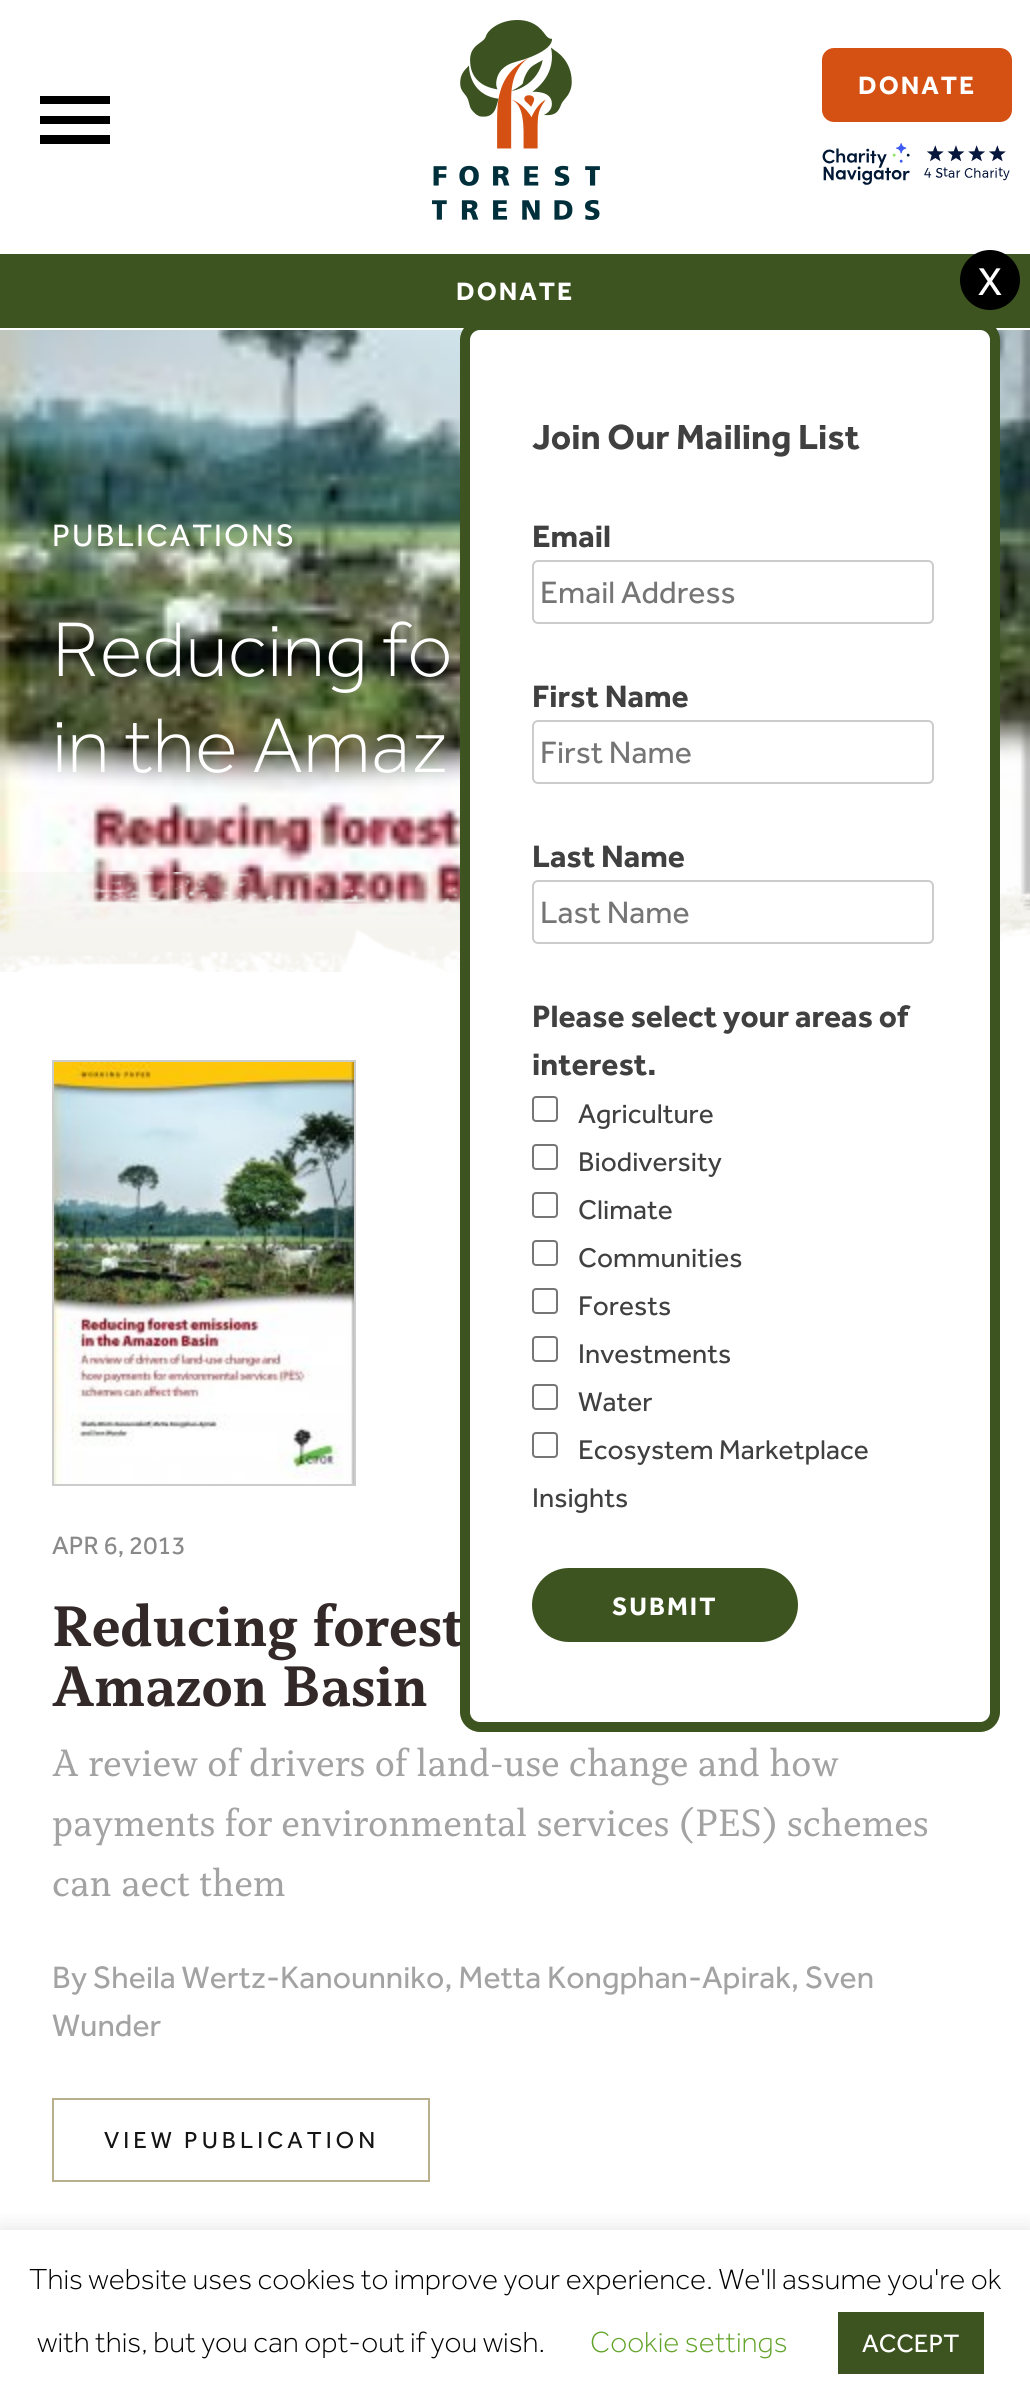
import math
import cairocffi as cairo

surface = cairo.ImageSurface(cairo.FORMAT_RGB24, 1030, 2407)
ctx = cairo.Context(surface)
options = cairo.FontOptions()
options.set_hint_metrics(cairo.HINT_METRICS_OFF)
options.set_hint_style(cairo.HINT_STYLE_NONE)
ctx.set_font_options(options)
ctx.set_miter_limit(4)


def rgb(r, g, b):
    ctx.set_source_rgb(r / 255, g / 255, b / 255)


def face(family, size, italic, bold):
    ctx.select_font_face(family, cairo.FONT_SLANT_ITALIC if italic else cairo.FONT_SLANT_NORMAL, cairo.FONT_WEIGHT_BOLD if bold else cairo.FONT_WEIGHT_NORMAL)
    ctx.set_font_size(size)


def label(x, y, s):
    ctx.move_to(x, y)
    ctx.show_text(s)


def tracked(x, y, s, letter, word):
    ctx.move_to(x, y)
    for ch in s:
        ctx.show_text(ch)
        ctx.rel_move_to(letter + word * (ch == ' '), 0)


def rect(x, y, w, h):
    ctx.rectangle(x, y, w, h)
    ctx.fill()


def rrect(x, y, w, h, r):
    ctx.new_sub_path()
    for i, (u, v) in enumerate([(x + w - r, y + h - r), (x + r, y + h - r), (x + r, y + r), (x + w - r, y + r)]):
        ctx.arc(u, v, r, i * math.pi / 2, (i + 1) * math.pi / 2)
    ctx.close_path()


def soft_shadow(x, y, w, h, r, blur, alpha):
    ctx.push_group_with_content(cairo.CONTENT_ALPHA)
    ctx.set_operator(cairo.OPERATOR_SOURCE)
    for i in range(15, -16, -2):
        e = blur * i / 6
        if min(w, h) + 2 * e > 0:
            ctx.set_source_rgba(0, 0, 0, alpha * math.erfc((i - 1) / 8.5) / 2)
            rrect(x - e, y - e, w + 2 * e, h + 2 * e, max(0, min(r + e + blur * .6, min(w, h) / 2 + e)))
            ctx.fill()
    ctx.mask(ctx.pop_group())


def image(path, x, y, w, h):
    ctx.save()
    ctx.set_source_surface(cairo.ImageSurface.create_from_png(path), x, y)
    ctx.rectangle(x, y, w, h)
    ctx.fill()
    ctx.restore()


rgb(255, 255, 255)
ctx.paint()
image('image0.png', 432, 20, 168, 200)
rgb(213, 80, 19)
rrect(822, 48, 190, 74, 12)
ctx.fill()
face('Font', 26, 0, 1)
rgb(255, 255, 255)
tracked(858, 94, 'DONATE', 2, 0)
image('image1.png', 822, 143, 188, 42)
image('image2.png', 40, 96, 70, 48)
rgb(61, 84, 32)
rect(0, 254, 1030, 74)
rgb(255, 255, 255)
tracked(456, 300, 'DONATE', 2, 0)
image('image3.png', 0, 330, 1030, 605)
image('image4.png', 0, 872, 1030, 100)
face('Font', 32, 0, 0)
tracked(52, 546, 'PUBLICATIONS', 2, 0)
face('Font Light', 80, 0, 0)
label(52, 676, 'Reducing fo')
label(52, 772, 'in the Amaz')
rgb(0, 0, 0)
ctx.new_path()
ctx.arc(990, 280, 30, 0, 2 * math.pi)
ctx.fill()
face('Font', 40, 0, 0)
rgb(255, 255, 255)
label(978, 295, 'X')
face('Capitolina', 60, 0, 1)
rgb(51, 41, 40)
label(52, 1646, 'Reducing forest')
rgb(255, 255, 255)
rrect(465, 325, 530, 1402, 15)
ctx.fill_preserve()
rgb(61, 84, 32)
ctx.set_line_width(10)
ctx.stroke()
face('Font', 36, 0, 1)
rgb(64, 64, 64)
label(532, 449, 'Join Our Mailing List')
face('Font', 32, 0, 1)
label(532, 547, 'Email')
rrect(533, 561, 400, 62, 5)
rgb(204, 204, 204)
ctx.set_line_width(2)
ctx.stroke()
face('Font', 32, 0, 0)
rgb(117, 117, 117)
label(540, 603, 'Email Address')
face('Font', 32, 0, 1)
rgb(64, 64, 64)
label(532, 707, 'First Name')
rrect(533, 721, 400, 62, 5)
rgb(204, 204, 204)
ctx.stroke()
face('Font', 32, 0, 0)
rgb(117, 117, 117)
label(540, 763, 'First Name')
face('Font', 32, 0, 1)
rgb(64, 64, 64)
label(532, 867, 'Last Name')
rrect(533, 881, 400, 62, 5)
rgb(204, 204, 204)
ctx.stroke()
face('Font', 32, 0, 0)
rgb(117, 117, 117)
label(540, 923, 'Last Name')
face('Font', 32, 0, 1)
rgb(64, 64, 64)
label(532, 1027, 'Please select your areas of')
label(532, 1075, 'interest.')
rrect(533, 1097, 24, 24, 3)
rgb(118, 118, 118)
ctx.stroke()
face('Font', 28, 0, 0)
rgb(64, 64, 64)
label(578, 1123, 'Agriculture')
rrect(533, 1145, 24, 24, 3)
rgb(118, 118, 118)
ctx.stroke()
rgb(64, 64, 64)
label(578, 1171, 'Biodiversity')
rrect(533, 1193, 24, 24, 3)
rgb(118, 118, 118)
ctx.stroke()
rgb(64, 64, 64)
label(578, 1219, 'Climate')
rrect(533, 1241, 24, 24, 3)
rgb(118, 118, 118)
ctx.stroke()
rgb(64, 64, 64)
label(578, 1267, 'Communities')
rrect(533, 1289, 24, 24, 3)
rgb(118, 118, 118)
ctx.stroke()
rgb(64, 64, 64)
label(578, 1315, 'Forests')
rrect(533, 1337, 24, 24, 3)
rgb(118, 118, 118)
ctx.stroke()
rgb(64, 64, 64)
label(578, 1363, 'Investments')
rrect(533, 1385, 24, 24, 3)
rgb(118, 118, 118)
ctx.stroke()
rgb(64, 64, 64)
label(578, 1411, 'Water')
rrect(533, 1433, 24, 24, 3)
rgb(118, 118, 118)
ctx.stroke()
rgb(64, 64, 64)
label(578, 1459, 'Ecosystem Marketplace')
label(532, 1507, 'Insights')
rgb(61, 84, 32)
rrect(532, 1568, 266, 74, 37)
ctx.fill()
face('Font', 26, 0, 1)
rgb(255, 255, 255)
tracked(612, 1615, 'SUBMIT', 2, 0)
ctx.rectangle(53, 1061, 302, 424)
rgb(204, 204, 204)
ctx.stroke()
image('image5.png', 54, 1062, 300, 422)
face('Font', 26, 0, 0)
rgb(137, 137, 137)
label(52, 1554, 'APR 6, 2013')
face('Capitolina', 60, 0, 1)
rgb(51, 41, 40)
label(52, 1706, 'Amazon Basin')
face('Capitolina', 40, 0, 0)
rgb(163, 163, 163)
label(52, 1776, 'A review of drivers of land-use change and how')
label(52, 1836, 'payments for environmental services (PES) schemes')
label(52, 1896, 'can aect them')
face('Font', 32, 0, 0)
label(52, 1988, 'By Sheila Wertz-Kanounniko, Metta Kongphan-Apirak, Sven')
label(52, 2036, 'Wunder')
ctx.rectangle(53, 2099, 376, 82)
rgb(184, 176, 141)
ctx.stroke()
face('Font', 24, 0, 0)
rgb(20, 20, 20)
tracked(104, 2148, 'VIEW PUBLICATION', 4, 0)
ctx.save()
ctx.rectangle(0, 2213, 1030, 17)
ctx.clip()
rgb(172, 171, 171)
soft_shadow(0, 2228, 1030, 178, 0, 10, 0.3)
ctx.restore()
face('Font Light', 30, 0, 0)
rgb(0, 0, 0)
label(29, 2289, 'This website uses cookies to improve your experience. We\'ll assume you\'re ok')
label(37, 2352, 'with this, but you can opt-out if you wish.')
rgb(98, 163, 41)
label(590, 2352, 'Cookie settings')
rgb(61, 84, 32)
rect(838, 2312, 146, 62)
face('Font', 26, 0, 0)
rgb(255, 255, 255)
label(862, 2352, 'ACCEPT')
surface.write_to_png('render.png')
